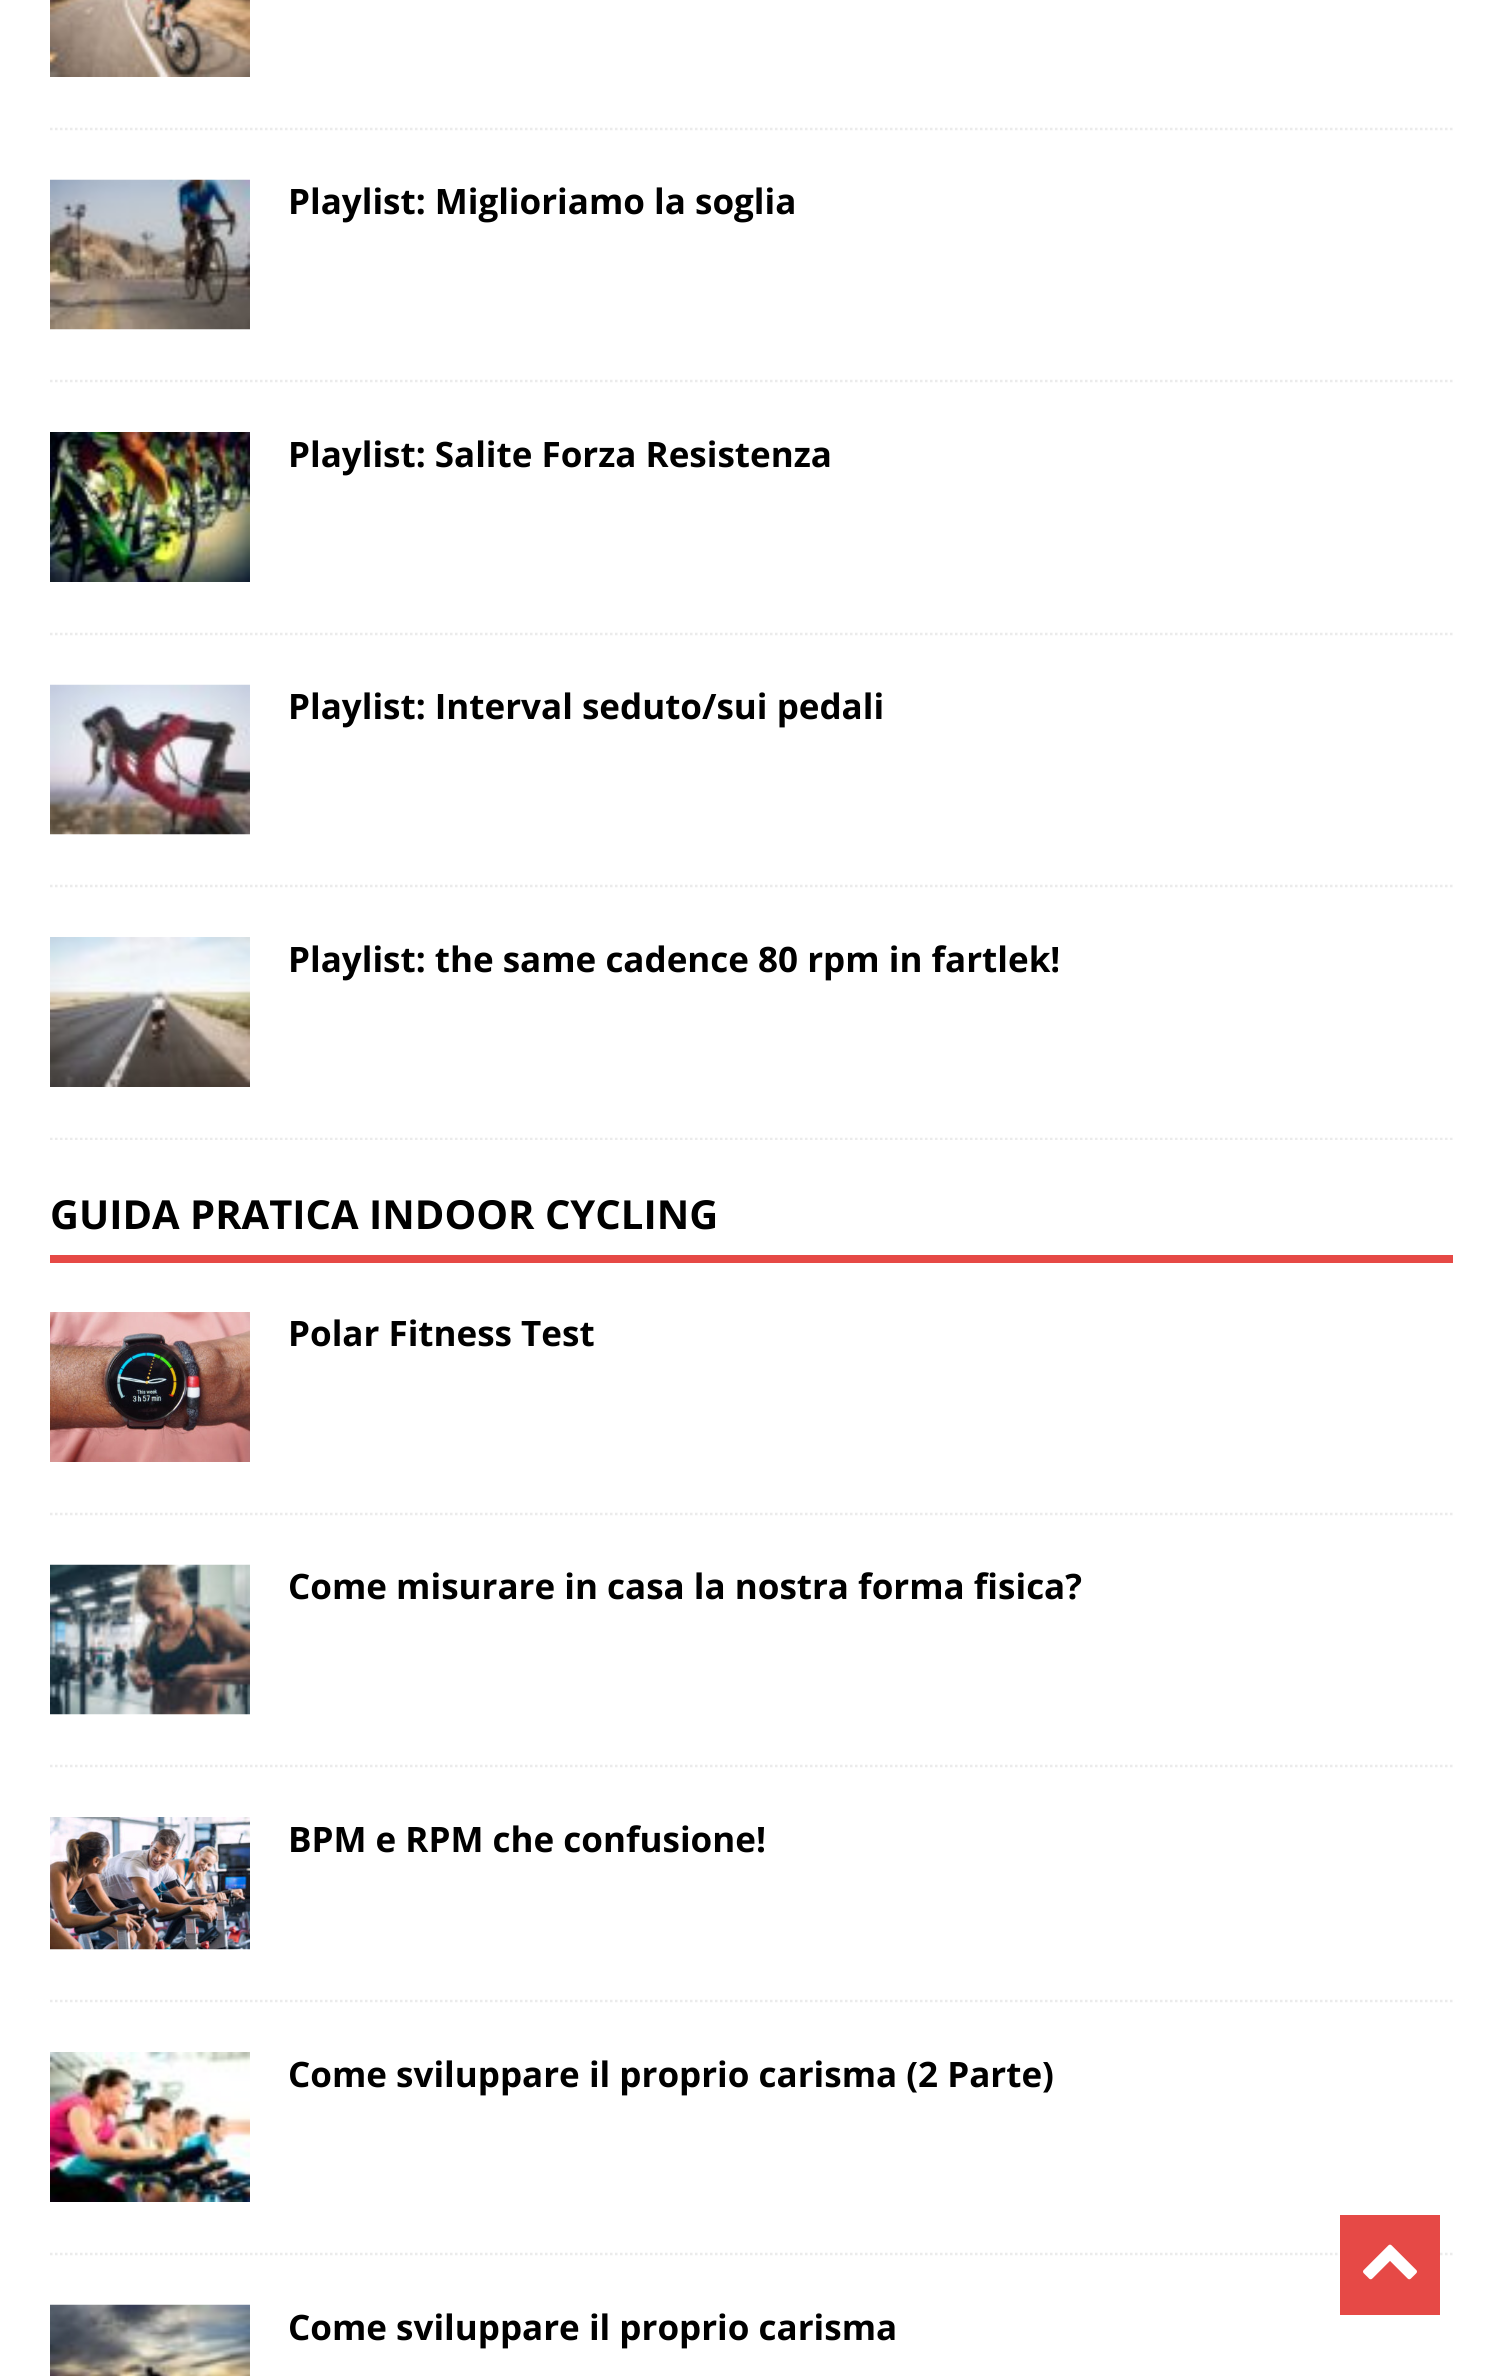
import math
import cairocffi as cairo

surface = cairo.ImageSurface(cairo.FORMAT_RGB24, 1501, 2376)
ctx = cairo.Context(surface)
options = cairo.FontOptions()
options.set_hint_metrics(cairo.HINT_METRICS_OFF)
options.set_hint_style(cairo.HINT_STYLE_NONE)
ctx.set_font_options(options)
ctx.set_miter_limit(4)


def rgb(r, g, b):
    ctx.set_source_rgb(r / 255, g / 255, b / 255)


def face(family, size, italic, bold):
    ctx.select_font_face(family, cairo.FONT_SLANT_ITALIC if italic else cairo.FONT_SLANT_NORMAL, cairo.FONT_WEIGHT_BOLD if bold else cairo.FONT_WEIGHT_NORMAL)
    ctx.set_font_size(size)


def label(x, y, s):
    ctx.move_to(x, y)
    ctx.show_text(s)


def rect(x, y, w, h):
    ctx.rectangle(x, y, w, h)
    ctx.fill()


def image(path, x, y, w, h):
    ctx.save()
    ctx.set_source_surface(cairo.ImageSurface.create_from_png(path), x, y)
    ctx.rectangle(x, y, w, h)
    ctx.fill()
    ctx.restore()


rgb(255, 255, 255)
ctx.paint()
ctx.new_path()
ctx.move_to(50, 129)
ctx.line_to(1452.5, 129)
rgb(235, 235, 235)
ctx.set_line_width(2.5)
ctx.set_dash([2.5, 2.5])
ctx.stroke()
image('image0.png', 50, 0, 200, 77)
ctx.new_path()
ctx.move_to(50, 381)
ctx.line_to(1452.5, 381)
ctx.stroke()
image('image1.png', 50, 179, 200, 151)
face('Open Sans', 35, 0, 1)
rgb(0, 0, 0)
label(288, 214, 'Playlist: Miglioriamo la soglia')
ctx.new_path()
ctx.move_to(50, 634)
ctx.line_to(1452.5, 634)
rgb(235, 235, 235)
ctx.stroke()
image('image2.png', 50, 432, 200, 150)
rgb(0, 0, 0)
label(288, 467, 'Playlist: Salite Forza Resistenza')
ctx.new_path()
ctx.move_to(50, 886)
ctx.line_to(1452.5, 886)
rgb(235, 235, 235)
ctx.stroke()
image('image3.png', 50, 684, 200, 151)
rgb(0, 0, 0)
label(288, 719, 'Playlist: Interval seduto/sui pedali')
ctx.save()
ctx.rectangle(50, 0, 1403, 1140)
ctx.clip()
ctx.new_path()
ctx.move_to(50, 1139)
ctx.line_to(1452.5, 1139)
rgb(235, 235, 235)
ctx.stroke()
ctx.restore()
image('image4.png', 50, 937, 200, 150)
label(288, 972, 'Playlist: the same cadence 80 rpm in fartlek!')
rgb(230, 73, 70)
rect(50, 1255, 1403, 8)
face('Open Sans', 40, 0, 1)
rgb(0, 0, 0)
label(50, 1229, 'GUIDA PRATICA INDOOR CYCLING')
ctx.new_path()
ctx.move_to(50, 1514)
ctx.line_to(1452.5, 1514)
rgb(235, 235, 235)
ctx.stroke()
image('image5.png', 50, 1312, 200, 150)
face('Open Sans', 35, 0, 1)
rgb(0, 0, 0)
label(288, 1346, 'Polar Fitness Test')
ctx.new_path()
ctx.move_to(50, 1766)
ctx.line_to(1452.5, 1766)
rgb(235, 235, 235)
ctx.stroke()
image('image6.png', 50, 1564, 200, 151)
rgb(0, 0, 0)
label(288, 1599, 'Come misurare in casa la nostra forma fisica?')
ctx.new_path()
ctx.move_to(50, 2001)
ctx.line_to(1452.5, 2001)
rgb(235, 235, 235)
ctx.stroke()
image('image7.png', 50, 1817, 200, 133)
rgb(0, 0, 0)
label(288, 1852, 'BPM e RPM che confusione!')
ctx.new_path()
ctx.move_to(50, 2254)
ctx.line_to(1452.5, 2254)
rgb(235, 235, 235)
ctx.stroke()
image('image8.png', 50, 2052, 200, 150)
rgb(0, 0, 0)
label(288, 2087, 'Come sviluppare il proprio carisma (2 Parte)')
image('image9.png', 50, 2304, 200, 72)
label(288, 2340, 'Come sviluppare il proprio carisma')
rgb(230, 73, 70)
rect(1340, 2215, 100, 100)
image('image10.png', 1363, 2244, 54, 36)
surface.write_to_png('render.png')
